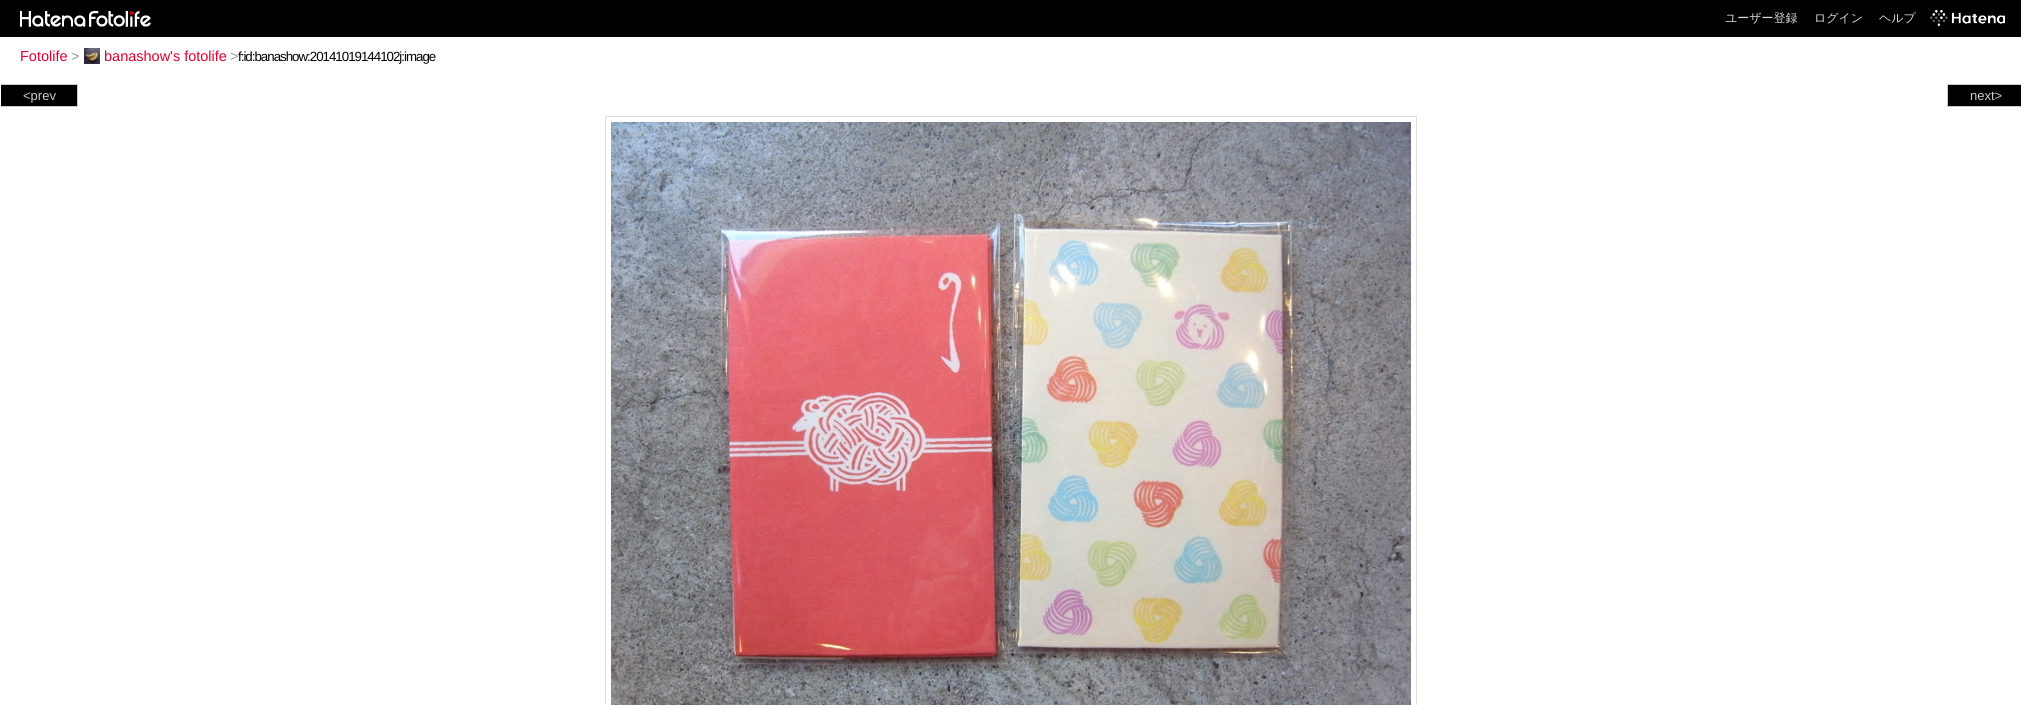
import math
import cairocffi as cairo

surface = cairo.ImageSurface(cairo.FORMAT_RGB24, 2021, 705)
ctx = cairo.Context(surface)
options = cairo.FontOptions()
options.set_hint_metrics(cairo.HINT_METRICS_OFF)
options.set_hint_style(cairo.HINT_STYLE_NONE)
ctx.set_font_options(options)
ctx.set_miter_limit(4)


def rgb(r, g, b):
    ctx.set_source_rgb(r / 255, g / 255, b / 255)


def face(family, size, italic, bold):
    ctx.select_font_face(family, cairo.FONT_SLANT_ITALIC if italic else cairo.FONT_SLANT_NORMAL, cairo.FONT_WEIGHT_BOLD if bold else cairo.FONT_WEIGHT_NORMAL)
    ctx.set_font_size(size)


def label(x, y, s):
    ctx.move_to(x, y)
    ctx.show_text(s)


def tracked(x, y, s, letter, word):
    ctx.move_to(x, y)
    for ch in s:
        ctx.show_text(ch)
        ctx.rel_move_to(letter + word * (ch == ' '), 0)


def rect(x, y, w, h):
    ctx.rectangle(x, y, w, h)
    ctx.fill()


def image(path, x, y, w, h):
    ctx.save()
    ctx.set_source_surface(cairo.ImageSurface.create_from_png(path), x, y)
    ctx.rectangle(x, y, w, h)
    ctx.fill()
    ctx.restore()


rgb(255, 255, 255)
ctx.paint()
rgb(0, 0, 0)
rect(0, 0, 2021, 37)
image('image0.png', 20, 11, 66, 16)
image('image1.png', 89, 11, 62, 16)
face('WenQuanYi Zen Hei Medium', 12, 0, 0)
rgb(221, 221, 221)
label(1725, 22, 'ユーザー登録')
label(1814, 22, 'ログイン')
label(1879, 22, 'ヘルプ')
image('image2.png', 1930, 10, 75, 16)
face('Liberation Sans', 14.5, 0, 0)
rgb(222, 0, 47)
label(20, 61, 'Fotolife')
rgb(153, 153, 153)
label(71, 61, '>')
image('image3.png', 84, 48, 16, 16)
rgb(222, 0, 47)
label(104, 61, 'banashow\'s fotolife')
rgb(153, 153, 153)
label(230, 61, '>')
face('Liberation Sans', 13.3, 0, 0)
rgb(0, 0, 0)
tracked(238, 61, 'f:id:banashow:20141019144102j:image', -1, 0)
rect(1, 85, 76, 21)
rgb(204, 204, 204)
rect(1, 84, 77, 1)
rect(77, 84, 1, 23)
rect(1, 106, 77, 1)
face('Liberation Sans', 13, 0, 0)
label(23, 100, '<prev')
rgb(0, 0, 0)
rect(1948, 85, 73, 21)
rgb(204, 204, 204)
rect(1947, 84, 74, 1)
rect(1947, 106, 74, 1)
rect(1947, 84, 1, 23)
label(1970, 100, 'next>')
ctx.rectangle(605.5, 116.5, 811, 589)
rgb(222, 222, 222)
ctx.set_line_width(1)
ctx.stroke()
image('image4.png', 611, 122, 800, 583)
surface.write_to_png('render.png')
